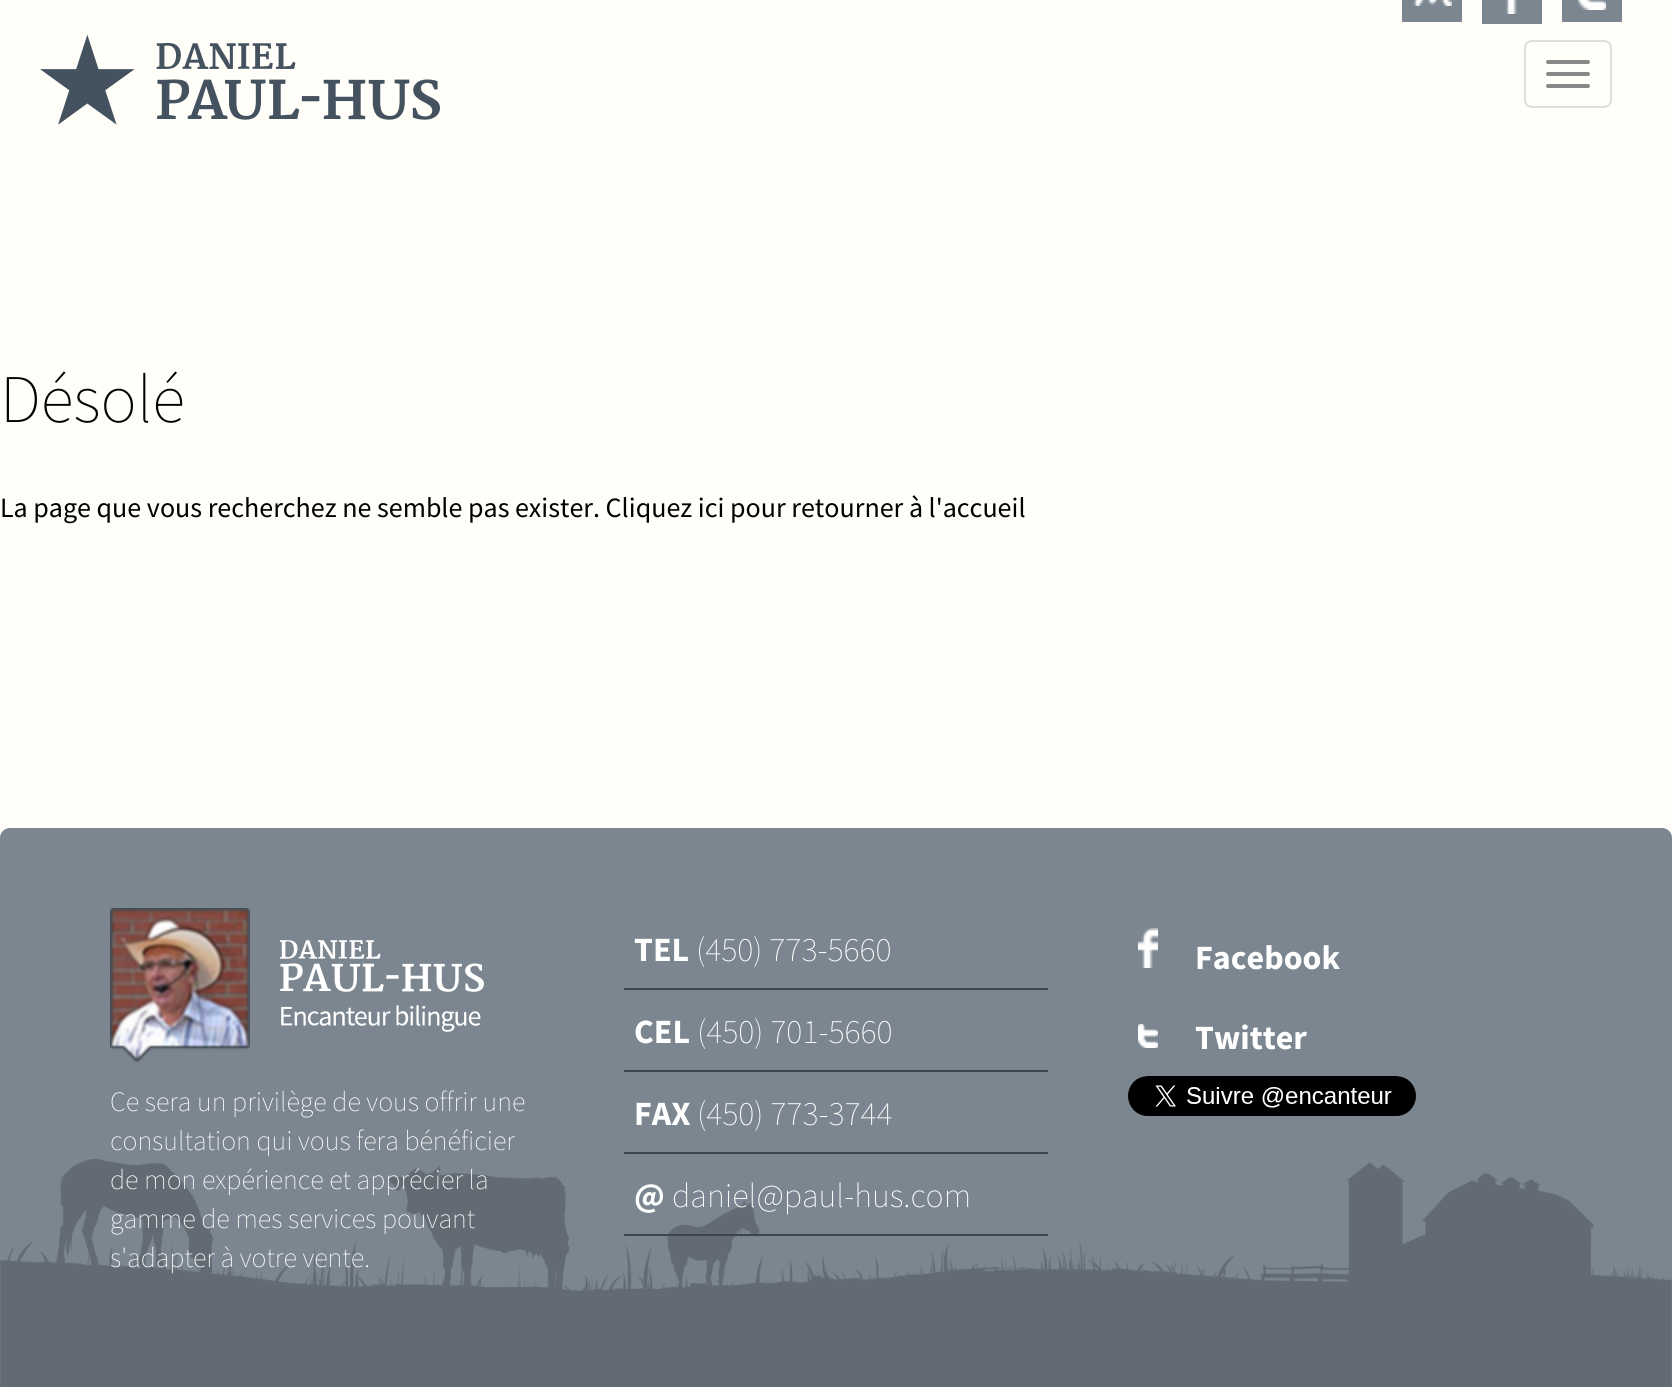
import math
import cairocffi as cairo

surface = cairo.ImageSurface(cairo.FORMAT_RGB24, 1672, 1387)
ctx = cairo.Context(surface)
options = cairo.FontOptions()
options.set_hint_metrics(cairo.HINT_METRICS_OFF)
options.set_hint_style(cairo.HINT_STYLE_NONE)
ctx.set_font_options(options)
ctx.set_miter_limit(4)


def rgb(r, g, b):
    ctx.set_source_rgb(r / 255, g / 255, b / 255)


def face(family, size, italic, bold):
    ctx.select_font_face(family, cairo.FONT_SLANT_ITALIC if italic else cairo.FONT_SLANT_NORMAL, cairo.FONT_WEIGHT_BOLD if bold else cairo.FONT_WEIGHT_NORMAL)
    ctx.set_font_size(size)


def label(x, y, s):
    ctx.move_to(x, y)
    ctx.show_text(s)


def rect(x, y, w, h):
    ctx.rectangle(x, y, w, h)
    ctx.fill()


def rrect(x, y, w, h, r):
    ctx.new_sub_path()
    for i, (u, v) in enumerate([(x + w - r, y + h - r), (x + r, y + h - r), (x + r, y + r), (x + w - r, y + r)]):
        ctx.arc(u, v, r, i * math.pi / 2, (i + 1) * math.pi / 2)
    ctx.close_path()


def image(path, x, y, w, h):
    ctx.save()
    ctx.set_source_surface(cairo.ImageSurface.create_from_png(path), x, y)
    ctx.rectangle(x, y, w, h)
    ctx.fill()
    ctx.restore()


rgb(255, 254, 249)
ctx.paint()
rgb(123, 134, 144)
rect(1402, 0, 60, 22)
image('image0.png', 1413, 0, 39, 6)
rect(1482, 0, 60, 24)
image('image1.png', 1505, 0, 12, 14)
rect(1562, 0, 60, 22)
image('image2.png', 1578, 0, 28, 10)
image('image3.png', 40, 34, 400, 91)
rrect(1525, 41, 86, 66, 7)
rgb(221, 221, 221)
ctx.stroke()
rgb(136, 136, 136)
rrect(1546, 60, 44, 4, 2)
ctx.fill()
rrect(1546, 72, 44, 4, 2)
ctx.fill()
rrect(1546, 84, 44, 4, 2)
ctx.fill()
rgb(255, 255, 255)
rect(40, 186, 1592, 4)
face('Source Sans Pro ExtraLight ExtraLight', 68, 0, 0)
rgb(0, 0, 0)
label(0, 422, 'Désolé')
face('Source Sans Pro', 28, 0, 0)
label(0, 517, 'La page que vous recherchez ne semble pas exister. Cliquez ici pour retourner à l\'accueil')
rgb(123, 134, 144)
rrect(0, 828, 1672, 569, 10)
ctx.fill()
image('image4.png', 0, 1158, 1672, 229)
rgb(61, 69, 77)
rect(624, 988, 424, 2)
face('Source Sans Pro', 34, 0, 1)
rgb(255, 255, 255)
label(634, 961, 'TEL')
face('Source Sans Pro ExtraLight ExtraLight', 34, 0, 0)
label(696, 961, '(450) 773-5660')
rgb(61, 69, 77)
rect(624, 1070, 424, 2)
face('Source Sans Pro', 34, 0, 1)
rgb(255, 255, 255)
label(634, 1043, 'CEL')
face('Source Sans Pro ExtraLight ExtraLight', 34, 0, 0)
label(697, 1043, '(450) 701-5660')
rgb(61, 69, 77)
rect(624, 1152, 424, 2)
face('Source Sans Pro', 34, 0, 1)
rgb(255, 255, 255)
label(634, 1125, 'FAX')
face('Source Sans Pro ExtraLight ExtraLight', 34, 0, 0)
label(697, 1125, '(450) 773-3744')
rgb(61, 69, 77)
rect(624, 1234, 424, 2)
face('Source Sans Pro', 34, 0, 1)
rgb(255, 255, 255)
label(634, 1207, '@')
face('Source Sans Pro ExtraLight ExtraLight', 34, 0, 0)
label(672, 1207, 'daniel@paul-hus.com')
image('image5.png', 1138, 928, 20, 40)
face('Source Sans Pro', 34, 0, 1)
label(1195, 969, 'Facebook')
image('image6.png', 1138, 1024, 20, 24)
label(1195, 1049, 'Twitter')
image('image7.png', 1128, 1076, 288, 40)
image('image8.png', 110, 908, 140, 154)
image('image9.png', 280, 940, 204, 92)
face('Source Sans Pro ExtraLight ExtraLight', 28, 0, 0)
label(110, 1111, 'Ce sera un privilège de vous offrir une')
label(110, 1150, 'consultation qui vous fera bénéficier')
label(110, 1189, 'de mon expérience et apprécier la')
label(110, 1228, 'gamme de mes services pouvant')
label(110, 1267, 's\'adapter à votre vente.')
surface.write_to_png('render.png')
